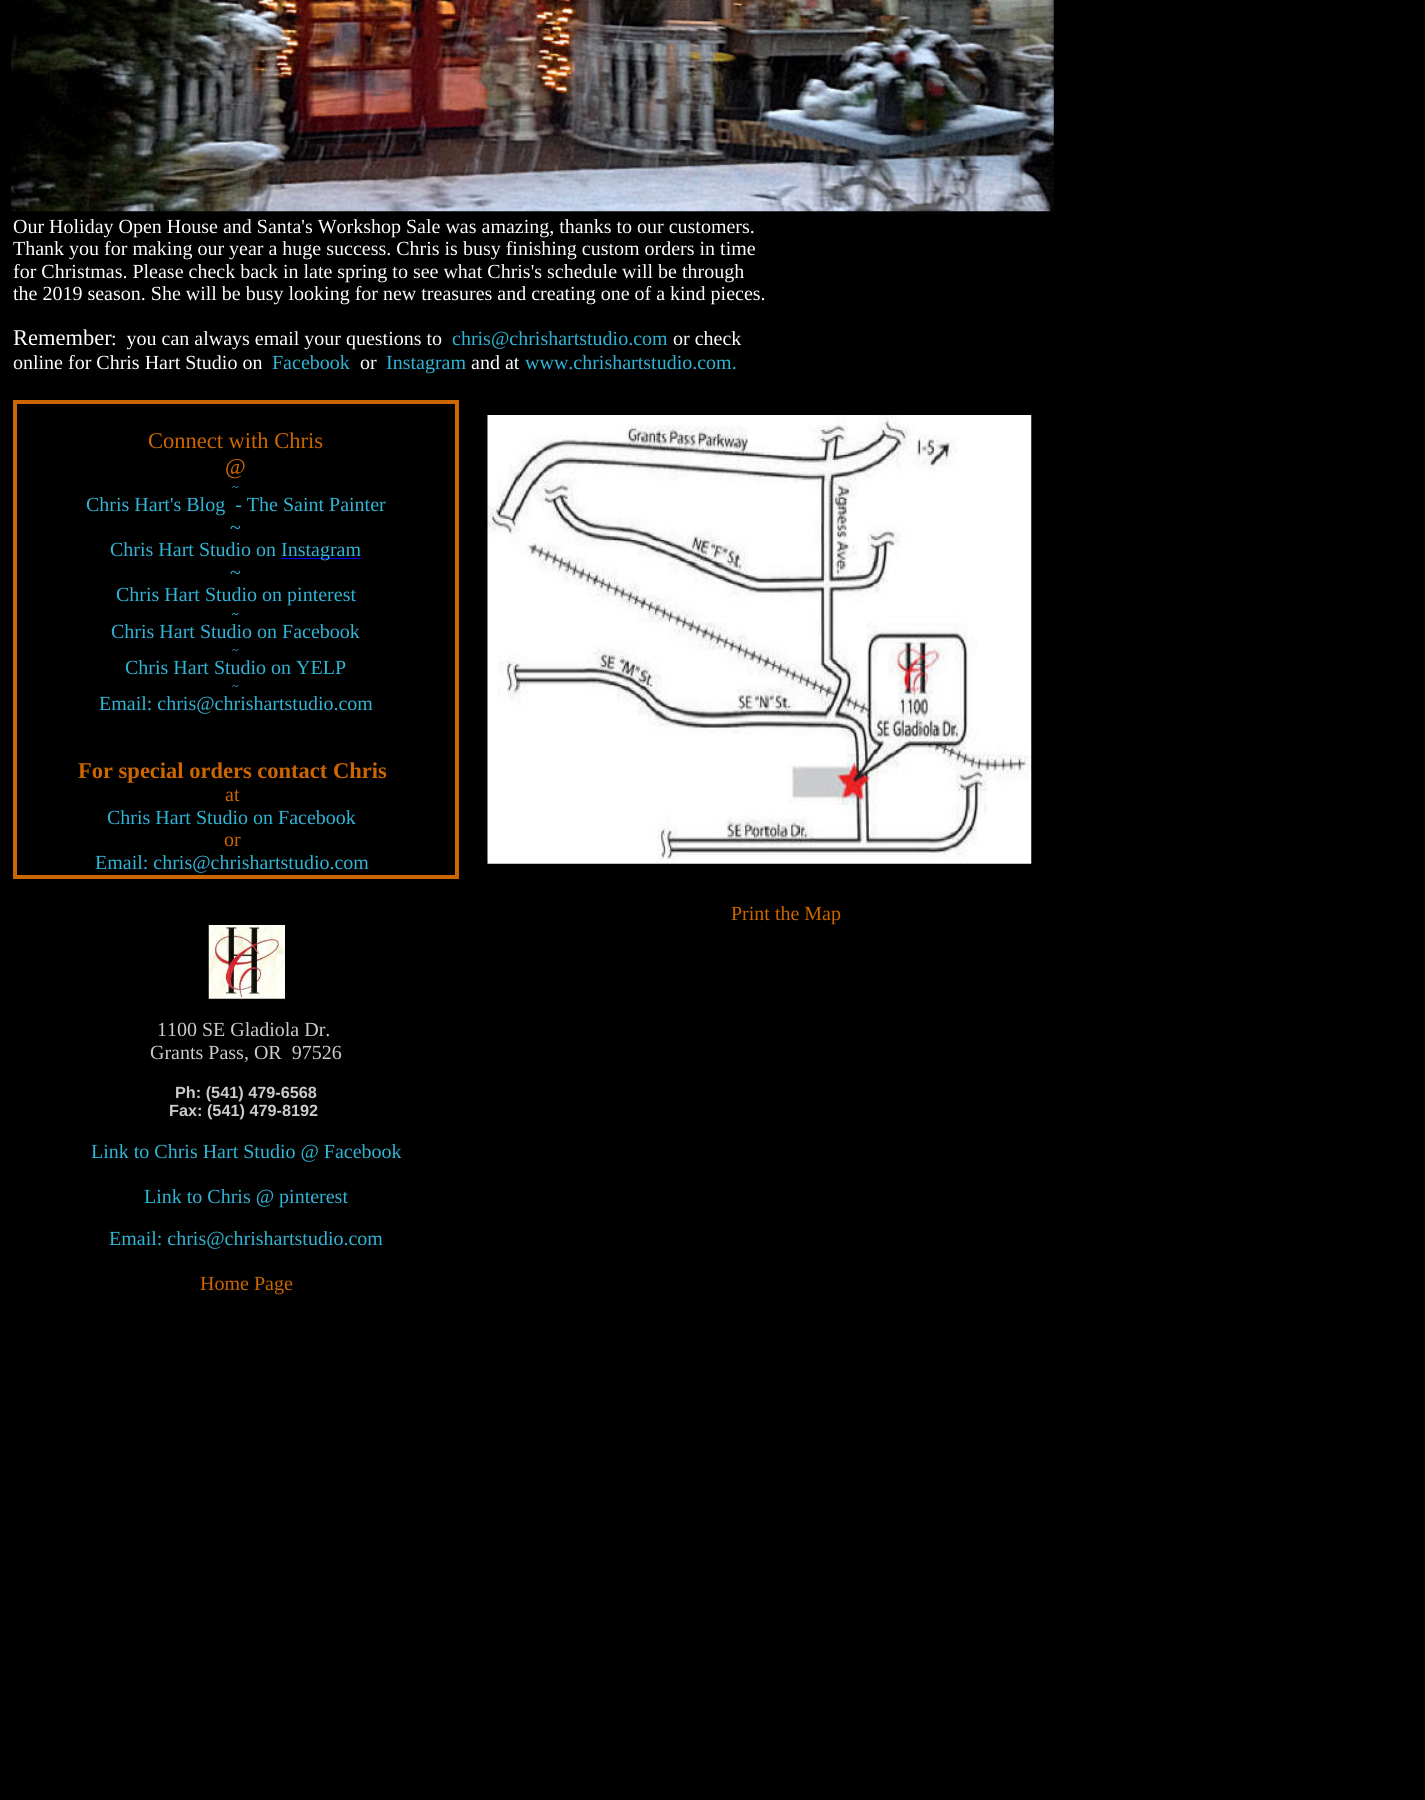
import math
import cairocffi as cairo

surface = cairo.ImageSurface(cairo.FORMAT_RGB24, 1425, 1800)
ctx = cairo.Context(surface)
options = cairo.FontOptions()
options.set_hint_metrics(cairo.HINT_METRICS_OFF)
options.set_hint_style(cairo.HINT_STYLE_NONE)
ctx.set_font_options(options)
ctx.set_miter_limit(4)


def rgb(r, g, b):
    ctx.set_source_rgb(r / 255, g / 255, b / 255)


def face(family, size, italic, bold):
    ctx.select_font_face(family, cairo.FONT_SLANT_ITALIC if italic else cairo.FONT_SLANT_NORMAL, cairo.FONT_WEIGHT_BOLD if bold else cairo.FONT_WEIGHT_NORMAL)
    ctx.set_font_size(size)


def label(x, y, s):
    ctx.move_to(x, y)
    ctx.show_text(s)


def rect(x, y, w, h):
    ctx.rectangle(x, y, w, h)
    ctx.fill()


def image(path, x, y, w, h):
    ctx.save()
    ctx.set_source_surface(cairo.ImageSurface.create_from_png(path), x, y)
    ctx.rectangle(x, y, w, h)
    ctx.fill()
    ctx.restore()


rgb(0, 0, 0)
ctx.paint()
image('image0.png', 11, 0, 1043, 212)
face('Liberation Serif', 20, 0, 0)
rgb(255, 255, 255)
label(13, 233, 'Our Holiday Open House and Santa\'s Workshop Sale was amazing, thanks to our customers.')
label(13, 255, 'Thank you for making our year a huge success. Chris is busy finishing custom orders in time')
label(13, 278, 'for Christmas. Please check back in late spring to see what Chris\'s schedule will be through')
label(13, 300, 'the 2019 season. She will be busy looking for new treasures and creating one of a kind pieces.')
face('Liberation Serif', 22.5, 0, 0)
label(13, 345, 'Remember')
face('Liberation Serif', 20, 0, 0)
label(111, 345, ':  you can always email your questions to')
rgb(49, 181, 214)
label(452, 345, 'chris@chrishartstudio.com')
rgb(255, 255, 255)
label(673, 345, 'or check')
label(13, 369, 'online for Chris Hart Studio on')
rgb(49, 181, 214)
label(272, 369, 'Facebook')
rgb(255, 255, 255)
label(360, 369, 'or')
rgb(49, 181, 214)
label(386, 369, 'Instagram')
rgb(255, 255, 255)
label(471, 369, 'and at')
rgb(49, 181, 214)
label(525, 369, 'www.chrishartstudio.com.')
ctx.rectangle(15, 402, 442, 475)
rgb(204, 102, 0)
ctx.set_line_width(4)
ctx.stroke()
face('Liberation Serif', 22.5, 0, 0)
label(148, 448, 'Connect with Chris')
label(225, 474, '@')
face('Liberation Serif', 12, 0, 0)
rgb(49, 181, 214)
label(232, 491, '~')
face('Liberation Serif', 20, 0, 0)
label(86, 511, 'Chris Hart\'s Blog  - The Saint Painter')
label(230, 534, '~')
label(110, 556, 'Chris Hart Studio on')
rgb(0, 0, 238)
rect(281, 558, 80, 1)
rgb(49, 181, 214)
label(281, 556, 'Instagram')
label(230, 579, '~')
label(116, 601, 'Chris Hart Studio on pinterest')
face('Liberation Serif', 12, 0, 1)
label(232, 618, '~')
face('Liberation Serif', 20, 0, 0)
label(111, 638, 'Chris Hart Studio on Facebook')
face('Liberation Serif', 12, 0, 0)
label(232, 654, '~')
face('Liberation Serif', 20, 0, 0)
label(125, 674, 'Chris Hart Studio on YELP')
face('Liberation Serif', 12, 0, 0)
label(232, 690, '~')
face('Liberation Serif', 20, 0, 0)
label(99, 710, 'Email: chris@chrishartstudio.com')
face('Liberation Serif', 22.5, 0, 1)
rgb(204, 102, 0)
label(78, 778, 'For special orders contact Chris')
face('Liberation Serif', 20, 0, 0)
label(225, 801, 'at')
rgb(49, 181, 214)
label(107, 824, 'Chris Hart Studio on Facebook')
rgb(204, 102, 0)
label(224, 846, 'or')
rgb(49, 181, 214)
label(95, 869, 'Email: chris@chrishartstudio.com')
image('image1.png', 487, 415, 545, 449)
rgb(204, 102, 0)
label(731, 920, 'Print the Map')
image('image2.png', 208, 925, 77, 74)
rgb(204, 204, 204)
label(157, 1036, '1100 SE Gladiola Dr.')
label(150, 1059, 'Grants Pass, OR  97526')
face('Liberation Sans', 16.25, 0, 1)
label(175, 1098, 'Ph: (541) 479-6568')
label(169, 1116, 'Fax: (541) 479-8192')
face('Liberation Serif', 20, 0, 0)
rgb(49, 181, 214)
label(91, 1158, 'Link to Chris Hart Studio @ Facebook')
label(144, 1203, 'Link to Chris @ pinterest')
label(109, 1245, 'Email: chris@chrishartstudio.com')
rgb(204, 102, 0)
label(200, 1290, 'Home Page')
surface.write_to_png('render.png')
